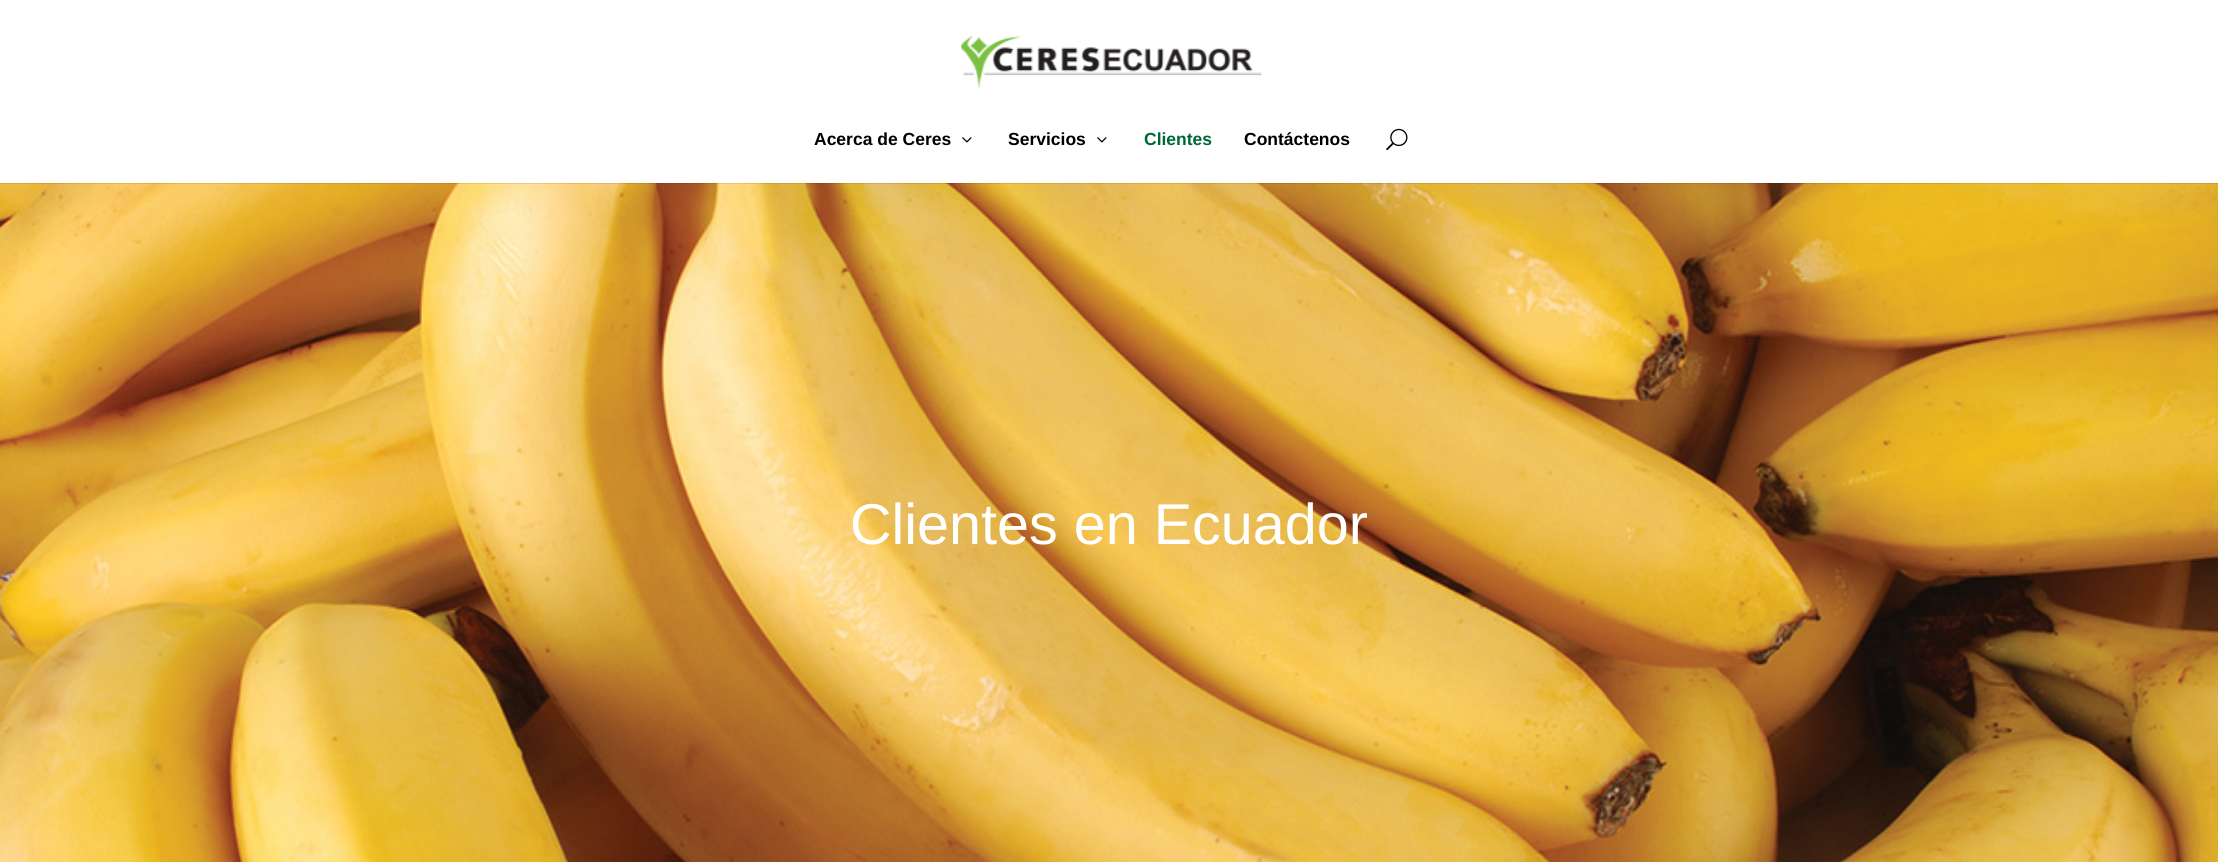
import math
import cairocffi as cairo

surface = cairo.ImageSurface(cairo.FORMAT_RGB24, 2218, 862)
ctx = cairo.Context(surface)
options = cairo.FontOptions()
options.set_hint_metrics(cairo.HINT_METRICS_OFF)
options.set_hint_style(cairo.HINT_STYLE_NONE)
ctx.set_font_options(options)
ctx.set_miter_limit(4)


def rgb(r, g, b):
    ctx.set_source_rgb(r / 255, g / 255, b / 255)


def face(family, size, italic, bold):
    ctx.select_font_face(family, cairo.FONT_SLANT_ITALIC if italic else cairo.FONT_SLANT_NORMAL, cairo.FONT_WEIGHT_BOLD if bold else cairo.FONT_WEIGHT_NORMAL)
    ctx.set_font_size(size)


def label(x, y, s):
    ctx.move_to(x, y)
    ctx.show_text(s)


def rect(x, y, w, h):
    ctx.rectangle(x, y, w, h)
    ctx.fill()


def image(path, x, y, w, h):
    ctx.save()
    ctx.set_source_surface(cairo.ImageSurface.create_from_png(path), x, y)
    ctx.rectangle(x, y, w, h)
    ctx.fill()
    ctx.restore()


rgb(255, 255, 255)
ctx.paint()
image('image3.png', 0, 183, 2218, 679)
ctx.set_source_rgba(0, 0, 0, 0.1)
ctx.new_path()
ctx.move_to(0, 182)
ctx.line_to(0, 184)
ctx.line_to(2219, 184)
ctx.line_to(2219, 1)
ctx.line_to(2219, 182)
ctx.close_path()
ctx.fill()
rgb(255, 255, 255)
rect(0, 182, 2218, 1)
image('image0.png', 961, 36, 301, 53)
face('Liberation Sans', 17.5, 0, 1)
rgb(0, 0, 0)
label(814, 145, 'Acerca de Ceres')
image('image1.png', 962, 137, 10, 6)
label(1008, 145, 'Servicios')
image('image1.png', 1097, 137, 10, 6)
rgb(0, 103, 56)
label(1144, 145, 'Clientes')
rgb(0, 0, 0)
label(1244, 145, 'Contáctenos')
image('image2.png', 1386, 128, 22, 23)
face('Liberation Sans', 57.5, 0, 0)
rgb(255, 255, 255)
label(850, 544, 'Clientes en Ecuador')
surface.write_to_png('render.png')
